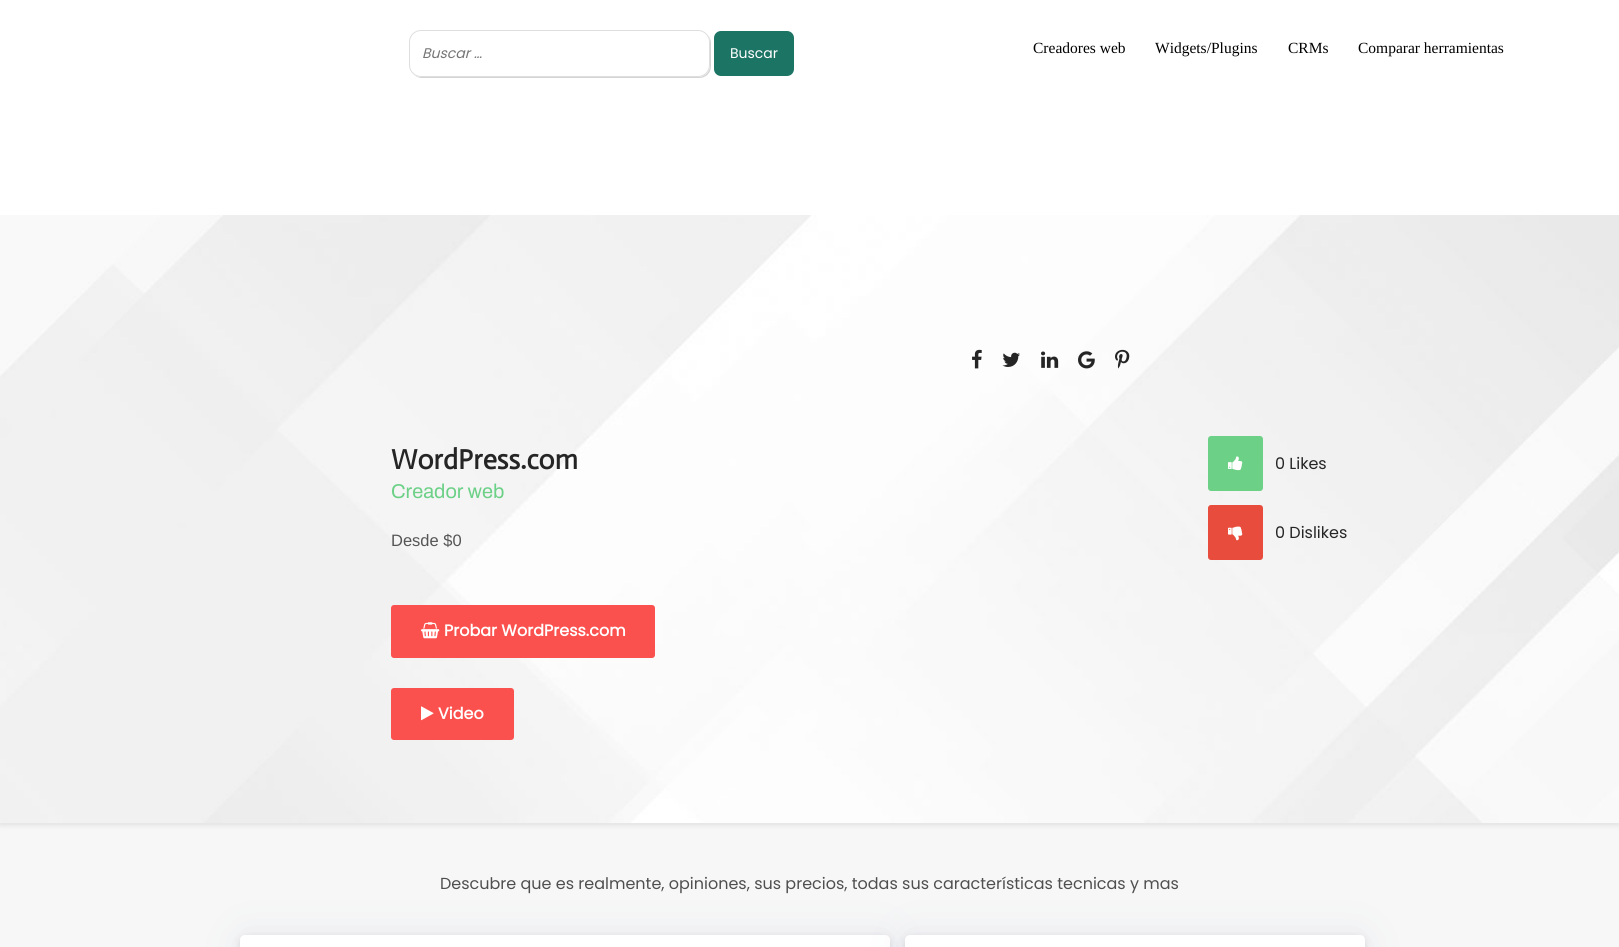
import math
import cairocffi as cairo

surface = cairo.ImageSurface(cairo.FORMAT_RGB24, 1619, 947)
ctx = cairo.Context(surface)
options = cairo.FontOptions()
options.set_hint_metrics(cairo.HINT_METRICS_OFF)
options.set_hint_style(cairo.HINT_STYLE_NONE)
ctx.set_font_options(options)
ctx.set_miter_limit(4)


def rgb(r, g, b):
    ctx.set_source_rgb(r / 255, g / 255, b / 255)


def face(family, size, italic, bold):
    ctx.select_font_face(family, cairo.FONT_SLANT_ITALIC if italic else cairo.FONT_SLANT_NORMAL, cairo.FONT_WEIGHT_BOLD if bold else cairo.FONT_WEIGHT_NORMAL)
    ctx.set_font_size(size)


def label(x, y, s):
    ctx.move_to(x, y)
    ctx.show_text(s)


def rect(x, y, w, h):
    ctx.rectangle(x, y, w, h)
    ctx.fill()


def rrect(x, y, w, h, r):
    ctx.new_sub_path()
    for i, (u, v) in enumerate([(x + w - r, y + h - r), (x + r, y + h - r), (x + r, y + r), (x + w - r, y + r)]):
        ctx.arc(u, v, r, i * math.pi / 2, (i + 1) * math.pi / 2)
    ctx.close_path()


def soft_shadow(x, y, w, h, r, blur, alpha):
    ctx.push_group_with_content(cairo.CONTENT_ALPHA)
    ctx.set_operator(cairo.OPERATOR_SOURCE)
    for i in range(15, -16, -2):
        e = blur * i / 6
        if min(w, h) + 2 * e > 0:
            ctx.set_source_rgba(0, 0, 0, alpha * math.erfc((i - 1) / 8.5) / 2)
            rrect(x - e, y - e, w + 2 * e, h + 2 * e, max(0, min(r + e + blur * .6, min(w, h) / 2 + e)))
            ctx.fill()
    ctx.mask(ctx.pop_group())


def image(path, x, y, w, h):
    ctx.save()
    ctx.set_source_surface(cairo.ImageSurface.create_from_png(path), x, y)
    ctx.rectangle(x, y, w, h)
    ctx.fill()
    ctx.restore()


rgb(247, 247, 247)
ctx.paint()
rgb(0, 0, 0)
soft_shadow(0, 217, 1619, 608, 0, 3, 0.1)
rgb(255, 255, 255)
rect(0, 0, 1619, 215)
rgb(212, 212, 212)
ctx.new_path()
ctx.move_to(413, 74)
ctx.curve_to(415, 76, 418, 78, 422, 78)
ctx.line_to(699, 78)
ctx.curve_to(706, 78, 711, 73, 711, 66)
ctx.line_to(711, 43)
ctx.curve_to(711, 39, 709, 36, 707, 34)
ctx.curve_to(709, 36, 710, 39, 710, 42)
ctx.line_to(710, 65)
ctx.curve_to(710, 72, 705, 77, 698, 77)
ctx.line_to(421, 77)
ctx.curve_to(418, 77, 415, 76, 413, 74)
ctx.close_path()
ctx.fill()
rgb(255, 255, 255)
rrect(409.5, 30.5, 300, 46, 11.5)
ctx.fill_preserve()
rgb(222, 222, 222)
ctx.set_line_width(1)
ctx.stroke()
face('Poppins', 14, 1, 0)
rgb(117, 117, 117)
label(422, 58, 'Buscar …')
rgb(28, 116, 100)
rrect(714, 31, 80, 45, 7)
ctx.fill()
face('Poppins', 14, 0, 0)
rgb(255, 255, 255)
label(730, 58, 'Buscar')
face('Liberation Serif', 15.5, 0, 0)
rgb(0, 0, 0)
label(1033, 53, 'Creadores web')
label(1155, 53, 'Widgets/Plugins')
label(1288, 53, 'CRMs')
label(1358, 53, 'Comparar herramientas')
image('image0.png', 0, 215, 1619, 608)
image('image1.png', 972, 349, 10, 20)
image('image2.png', 1002, 352, 18, 15)
image('image3.png', 1041, 351, 18, 17)
image('image4.png', 1078, 351, 17, 18)
image('image5.png', 1115, 349, 15, 20)
face('Actor', 28, 0, 1)
rgb(37, 37, 37)
label(391, 469, 'WordPress.com')
face('Archivo', 20, 0, 0)
rgb(108, 208, 135)
label(391, 498, 'Creador web')
face('Liberation Sans', 16.5, 0, 0)
rgb(85, 85, 85)
label(391, 546, 'Desde $0')
rgb(251, 81, 78)
rrect(391, 605, 264, 53, 3)
ctx.fill()
image('image6.png', 421, 622, 19, 17)
face('Poppins', 16, 0, 1)
rgb(255, 255, 255)
label(444, 636, 'Probar WordPress.com')
rgb(251, 81, 78)
rrect(391, 688, 123, 52, 3)
ctx.fill()
image('image7.png', 421, 706, 13, 15)
rgb(255, 255, 255)
label(438, 719, 'Video')
rgb(108, 208, 134)
rrect(1208, 436, 55, 55, 3)
ctx.fill()
image('image8.png', 1228, 456, 15, 15)
face('Poppins', 16, 0, 0)
rgb(37, 37, 37)
label(1275, 469, '0 Likes')
rgb(231, 76, 60)
rrect(1208, 505, 55, 55, 3)
ctx.fill()
image('image9.png', 1228, 526, 15, 15)
rgb(37, 37, 37)
label(1275, 538, '0 Dislikes')
rgb(79, 79, 79)
label(440, 889, 'Descubre que es realmente, opiniones, sus precios, todas sus características tecnicas y mas')
rgb(59, 77, 133)
soft_shadow(240, 935, 650, 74, 5, 19, 0.09)
rgb(0, 0, 0)
soft_shadow(240, 937, 650, 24, 5, 3, 0.1)
rgb(255, 255, 255)
ctx.new_path()
ctx.move_to(245, 935)
ctx.line_to(885, 935)
ctx.curve_to(888, 935, 890, 937, 890, 940)
ctx.line_to(890, 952)
ctx.line_to(240, 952)
ctx.line_to(240, 940)
ctx.curve_to(240, 937, 242, 935, 245, 935)
ctx.close_path()
ctx.fill()
rgb(59, 77, 133)
soft_shadow(905, 935, 460, 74, 5, 19, 0.09)
rgb(0, 0, 0)
soft_shadow(905, 937, 460, 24, 5, 3, 0.1)
rgb(255, 255, 255)
ctx.new_path()
ctx.move_to(910, 935)
ctx.line_to(1360, 935)
ctx.curve_to(1363, 935, 1365, 937, 1365, 940)
ctx.line_to(1365, 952)
ctx.line_to(905, 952)
ctx.line_to(905, 940)
ctx.curve_to(905, 937, 907, 935, 910, 935)
ctx.close_path()
ctx.fill()
surface.write_to_png('render.png')
